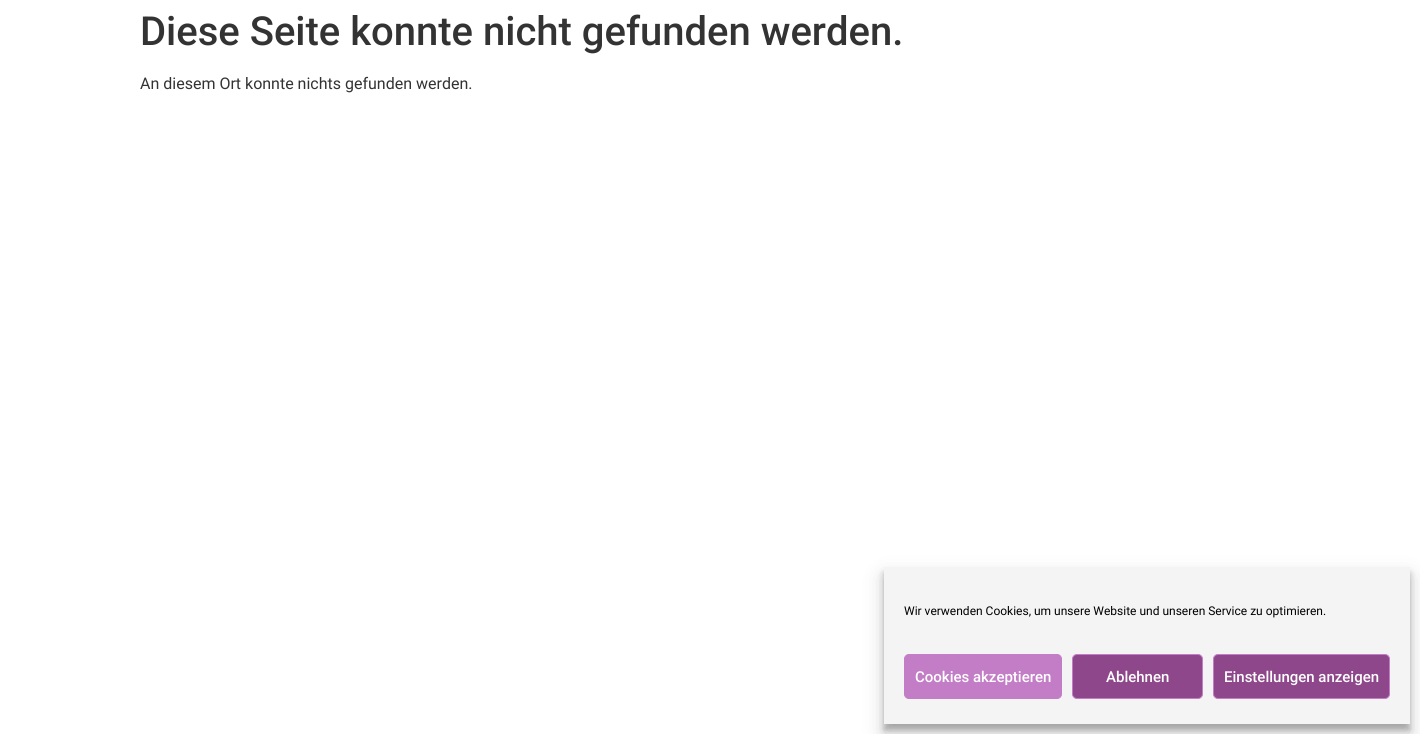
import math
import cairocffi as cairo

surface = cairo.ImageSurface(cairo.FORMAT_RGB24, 1420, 734)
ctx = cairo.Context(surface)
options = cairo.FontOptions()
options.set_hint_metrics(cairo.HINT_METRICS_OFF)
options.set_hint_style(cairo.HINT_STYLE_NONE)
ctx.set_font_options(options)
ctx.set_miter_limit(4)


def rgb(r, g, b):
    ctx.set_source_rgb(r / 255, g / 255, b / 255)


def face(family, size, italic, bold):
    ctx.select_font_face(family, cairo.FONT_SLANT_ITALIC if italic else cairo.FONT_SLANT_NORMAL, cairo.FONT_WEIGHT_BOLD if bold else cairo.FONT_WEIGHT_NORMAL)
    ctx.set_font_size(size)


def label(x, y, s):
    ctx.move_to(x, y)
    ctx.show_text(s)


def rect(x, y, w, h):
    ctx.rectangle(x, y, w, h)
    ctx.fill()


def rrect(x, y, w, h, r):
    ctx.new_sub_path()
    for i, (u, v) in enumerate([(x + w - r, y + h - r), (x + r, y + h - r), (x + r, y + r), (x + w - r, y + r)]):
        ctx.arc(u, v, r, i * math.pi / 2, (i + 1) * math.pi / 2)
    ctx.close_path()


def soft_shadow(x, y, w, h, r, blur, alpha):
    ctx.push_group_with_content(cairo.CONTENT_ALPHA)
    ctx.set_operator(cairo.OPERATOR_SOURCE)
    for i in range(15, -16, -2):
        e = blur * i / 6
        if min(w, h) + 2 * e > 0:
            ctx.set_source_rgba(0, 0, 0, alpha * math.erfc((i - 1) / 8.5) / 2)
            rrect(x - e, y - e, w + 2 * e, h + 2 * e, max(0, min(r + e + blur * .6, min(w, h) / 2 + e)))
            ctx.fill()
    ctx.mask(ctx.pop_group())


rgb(255, 255, 255)
ctx.paint()
face('Roboto Medium', 40, 0, 0)
rgb(51, 51, 51)
label(140, 45, 'Diese Seite konnte nicht gefunden werden.')
face('Roboto', 16, 0, 0)
label(140, 89, 'An diesem Ort konnte nichts gefunden werden.')
rgb(0, 0, 0)
soft_shadow(884, 573, 526, 157, 0, 3, 0.23)
soft_shadow(884, 577, 526, 157, 0, 10, 0.19)
rgb(244, 244, 244)
rect(884, 567, 526, 157)
face('Roboto', 12, 0, 0)
rgb(0, 0, 0)
label(904, 615, 'Wir verwenden Cookies, um unsere Website und unseren Service zu optimieren.')
rgb(195, 124, 198)
rrect(904.5, 654.5, 157, 44, 4.5)
ctx.fill_preserve()
ctx.set_line_width(1)
ctx.stroke()
face('Roboto Medium', 15, 0, 0)
rgb(255, 255, 255)
label(915, 682, 'Cookies akzeptieren')
rgb(141, 71, 138)
rrect(1072.5, 654.5, 130, 44, 4.5)
ctx.fill_preserve()
rgb(195, 124, 198)
ctx.stroke()
rgb(255, 255, 255)
label(1106, 682, 'Ablehnen')
rgb(141, 71, 138)
rrect(1213.5, 654.5, 176, 44, 4.5)
ctx.fill_preserve()
rgb(195, 124, 198)
ctx.stroke()
rgb(255, 255, 255)
label(1224, 682, 'Einstellungen anzeigen')
surface.write_to_png('render.png')
